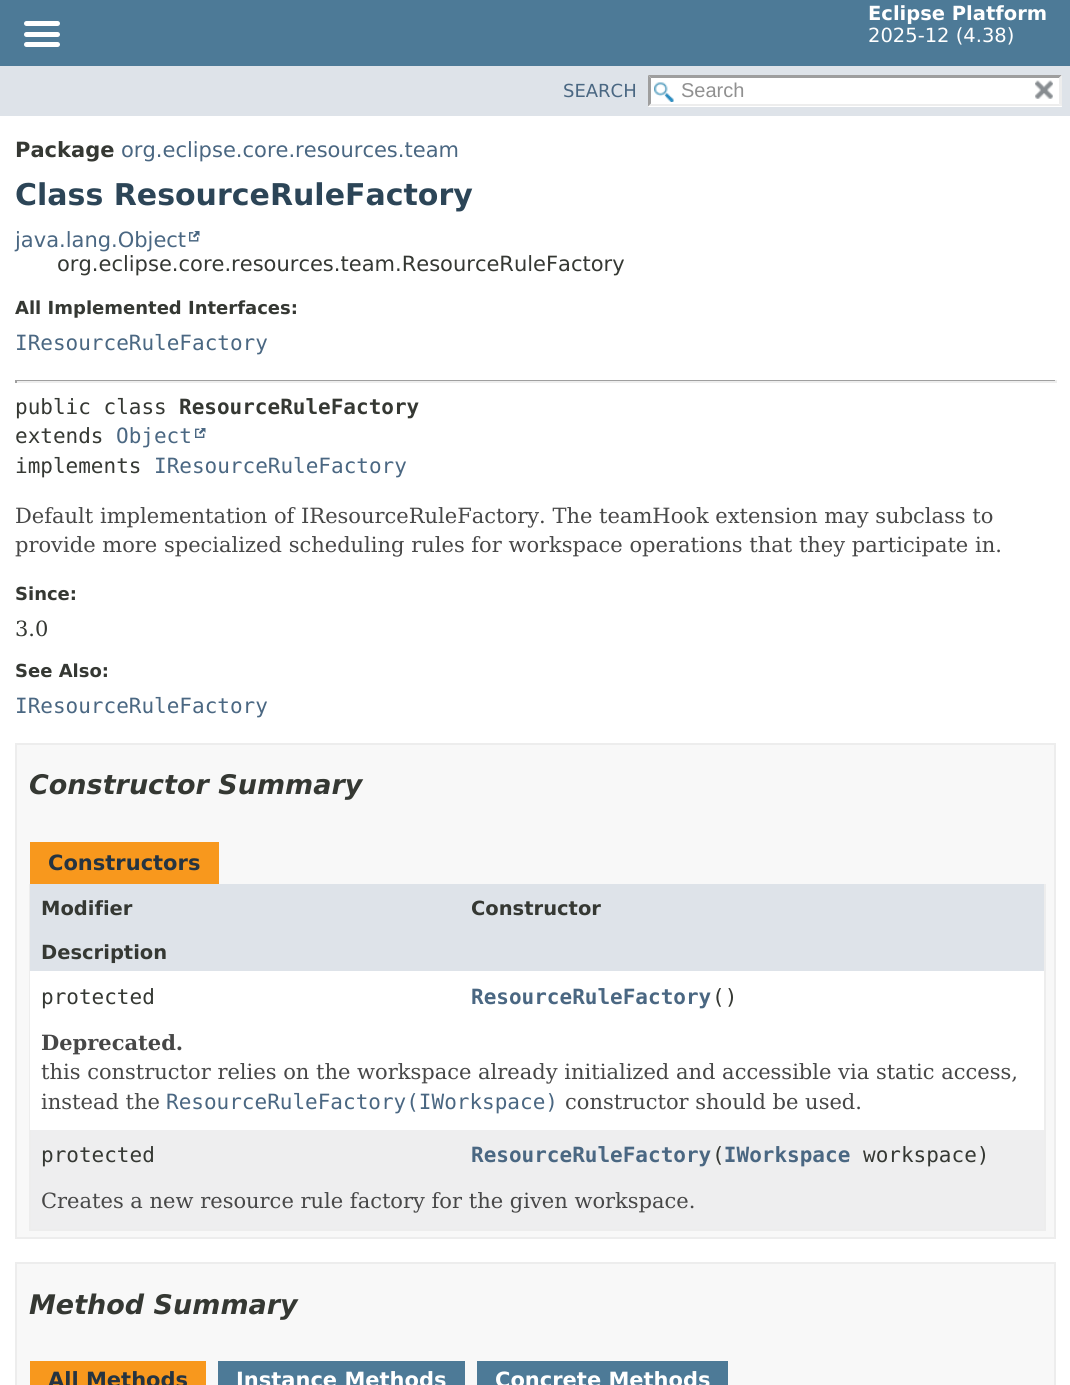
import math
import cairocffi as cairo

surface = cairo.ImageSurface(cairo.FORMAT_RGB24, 1070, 1385)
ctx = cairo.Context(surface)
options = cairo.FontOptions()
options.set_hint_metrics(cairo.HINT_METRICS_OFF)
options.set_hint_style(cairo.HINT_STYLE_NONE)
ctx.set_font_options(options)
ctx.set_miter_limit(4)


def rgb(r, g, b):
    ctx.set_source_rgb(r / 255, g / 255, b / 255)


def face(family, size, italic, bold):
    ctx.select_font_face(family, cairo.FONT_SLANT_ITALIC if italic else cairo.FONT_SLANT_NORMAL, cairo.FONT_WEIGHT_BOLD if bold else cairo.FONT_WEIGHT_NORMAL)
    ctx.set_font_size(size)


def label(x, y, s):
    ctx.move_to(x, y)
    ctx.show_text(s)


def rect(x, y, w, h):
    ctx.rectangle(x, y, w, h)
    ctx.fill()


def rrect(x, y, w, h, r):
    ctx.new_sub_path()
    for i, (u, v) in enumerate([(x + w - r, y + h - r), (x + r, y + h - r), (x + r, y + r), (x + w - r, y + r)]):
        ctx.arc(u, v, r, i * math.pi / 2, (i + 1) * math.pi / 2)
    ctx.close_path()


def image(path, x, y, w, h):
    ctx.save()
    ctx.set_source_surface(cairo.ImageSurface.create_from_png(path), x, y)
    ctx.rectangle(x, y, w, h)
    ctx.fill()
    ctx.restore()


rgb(255, 255, 255)
ctx.paint()
rgb(77, 122, 151)
rect(0, 0, 1070, 66)
rgb(255, 255, 255)
rrect(24, 21, 36, 5, 2.5)
ctx.fill()
rrect(24, 32, 36, 5, 2.5)
ctx.fill()
rrect(24, 42, 36, 5, 2.5)
ctx.fill()
face('DejaVu Sans', 19.5, 0, 1)
label(868, 20, 'Eclipse Platform')
face('DejaVu Sans', 19.5, 0, 0)
label(868, 42, '2025-12 (4.38)')
rgb(222, 227, 233)
rect(0, 66, 1070, 50)
face('DejaVu Sans', 18, 0, 0)
rgb(74, 103, 130)
label(563, 97, 'SEARCH')
rgb(255, 255, 255)
rect(648, 75, 414, 32)
image('image0.png', 654, 82, 20, 20)
rgb(158, 158, 158)
ctx.new_path()
ctx.move_to(648, 75)
ctx.line_to(1062, 75)
ctx.line_to(1059, 78)
ctx.line_to(651, 78)
ctx.close_path()
ctx.fill()
rgb(237, 237, 237)
ctx.new_path()
ctx.move_to(1062, 75)
ctx.line_to(1062, 106.5)
ctx.line_to(1059, 103.5)
ctx.line_to(1059, 78)
ctx.close_path()
ctx.fill()
ctx.new_path()
ctx.move_to(1062, 106)
ctx.line_to(648, 106)
ctx.line_to(651, 104)
ctx.line_to(1059, 104)
ctx.close_path()
ctx.fill()
rgb(158, 158, 158)
ctx.new_path()
ctx.move_to(648, 106.5)
ctx.line_to(648, 75)
ctx.line_to(651, 78)
ctx.line_to(651, 103.5)
ctx.close_path()
ctx.fill()
face('Liberation Sans', 20, 0, 0)
rgb(144, 144, 144)
label(681, 97, 'Search')
image('image1.png', 1035, 80, 18, 19)
face('DejaVu Sans', 21, 0, 1)
rgb(53, 56, 51)
label(15, 157, 'Package')
face('DejaVu Sans', 21, 0, 0)
rgb(74, 103, 130)
label(121, 157, 'org.eclipse.core.resources.team')
face('DejaVu Sans', 30, 0, 1)
rgb(44, 69, 87)
label(15, 205, 'Class ResourceRuleFactory')
face('DejaVu Sans', 21, 0, 0)
rgb(74, 103, 130)
label(15, 247, 'java.lang.Object')
image('image2.png', 189, 231, 11, 11)
rgb(53, 56, 51)
label(57, 271, 'org.eclipse.core.resources.team.ResourceRuleFactory')
face('DejaVu Sans', 18, 0, 1)
label(15, 314, 'All Implemented Interfaces:')
face('DejaVu Sans Mono', 21, 0, 0)
rgb(74, 103, 130)
label(15, 350, 'IResourceRuleFactory')
rgb(159, 159, 159)
rect(15, 380, 1041, 1)
rgb(238, 238, 238)
rect(1055, 380, 2, 3)
rect(15, 381, 1041, 2)
rgb(159, 159, 159)
rect(15, 380, 2, 3)
rgb(53, 56, 51)
label(15, 414, 'public class')
face('DejaVu Sans Mono', 21, 0, 1)
label(179, 414, 'ResourceRuleFactory')
face('DejaVu Sans Mono', 21, 0, 0)
label(15, 443, 'extends')
rgb(74, 103, 130)
label(116, 443, 'Object')
image('image3.png', 195, 428, 11, 10)
rgb(53, 56, 51)
label(15, 473, 'implements')
rgb(74, 103, 130)
label(154, 473, 'IResourceRuleFactory')
face('DejaVu Serif', 21, 0, 0)
rgb(71, 71, 71)
label(15, 523, 'Default implementation of IResourceRuleFactory. The teamHook extension may subclass to')
label(15, 552, 'provide more specialized scheduling rules for workspace operations that they participate in.')
face('DejaVu Sans', 18, 0, 1)
rgb(53, 56, 51)
label(15, 600, 'Since:')
face('DejaVu Serif', 21, 0, 0)
label(15, 636, '3.0')
face('DejaVu Sans', 18, 0, 1)
label(15, 677, 'See Also:')
face('DejaVu Sans Mono', 21, 0, 0)
rgb(74, 103, 130)
label(15, 713, 'IResourceRuleFactory')
rgb(248, 248, 248)
ctx.rectangle(16, 744, 1039, 494)
ctx.fill_preserve()
rgb(237, 237, 237)
ctx.stroke()
face('DejaVu Sans', 27, 1, 1)
rgb(53, 56, 51)
label(29, 794, 'Constructor Summary')
rgb(248, 152, 29)
rect(30, 842, 189, 42)
face('DejaVu Sans', 21, 0, 1)
rgb(37, 52, 65)
label(48, 870, 'Constructors')
rgb(237, 237, 237)
rect(1044, 884, 2, 346)
rect(29, 1229, 1017, 2)
rect(29, 884, 2, 346)
rgb(222, 227, 233)
rect(30, 884, 1014, 87)
face('DejaVu Sans', 19.5, 0, 1)
rgb(53, 56, 51)
label(41, 915, 'Modifier')
label(471, 915, 'Constructor')
label(41, 959, 'Description')
rgb(255, 255, 255)
rect(30, 971, 1014, 159)
face('DejaVu Sans Mono', 21, 0, 0)
rgb(53, 56, 51)
label(41, 1004, 'protected')
face('DejaVu Sans Mono', 21, 0, 1)
rgb(74, 103, 130)
label(471, 1004, 'ResourceRuleFactory')
face('DejaVu Sans Mono', 21, 0, 0)
rgb(53, 56, 51)
label(712, 1004, '()')
face('DejaVu Serif', 21, 0, 1)
rgb(71, 71, 71)
label(41, 1050, 'Deprecated.')
face('DejaVu Serif', 21, 0, 0)
label(41, 1079, 'this constructor relies on the workspace already initialized and accessible via static access,')
label(41, 1109, 'instead the')
face('DejaVu Sans Mono', 21, 0, 0)
rgb(74, 103, 130)
label(166, 1109, 'ResourceRuleFactory(IWorkspace)')
face('DejaVu Serif', 21, 0, 0)
rgb(71, 71, 71)
label(565, 1109, 'constructor should be used.')
rgb(238, 238, 239)
rect(31, 1130, 1013, 99)
face('DejaVu Sans Mono', 21, 0, 0)
rgb(53, 56, 51)
label(41, 1162, 'protected')
face('DejaVu Sans Mono', 21, 0, 1)
rgb(74, 103, 130)
label(471, 1162, 'ResourceRuleFactory IWorkspace')
face('DejaVu Sans Mono', 21, 0, 0)
rgb(53, 56, 51)
label(712, 1162, '(')
label(863, 1162, 'workspace)')
face('DejaVu Serif', 21, 0, 0)
rgb(71, 71, 71)
label(41, 1208, 'Creates a new resource rule factory for the given workspace.')
rgb(248, 248, 248)
ctx.rectangle(16, 1263, 1039, 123)
ctx.fill_preserve()
rgb(237, 237, 237)
ctx.stroke()
face('DejaVu Sans', 27, 1, 1)
rgb(53, 56, 51)
label(29, 1314, 'Method Summary')
rgb(248, 152, 29)
rect(30, 1361, 176, 24)
face('DejaVu Sans', 21, 0, 1)
rgb(37, 52, 65)
label(48, 1387, 'All Methods')
rgb(77, 122, 151)
rect(218, 1361, 247, 24)
rgb(255, 255, 255)
label(236, 1387, 'Instance Methods')
rgb(77, 122, 151)
rect(477, 1361, 251, 24)
rgb(255, 255, 255)
label(495, 1387, 'Concrete Methods')
surface.write_to_png('render.png')
